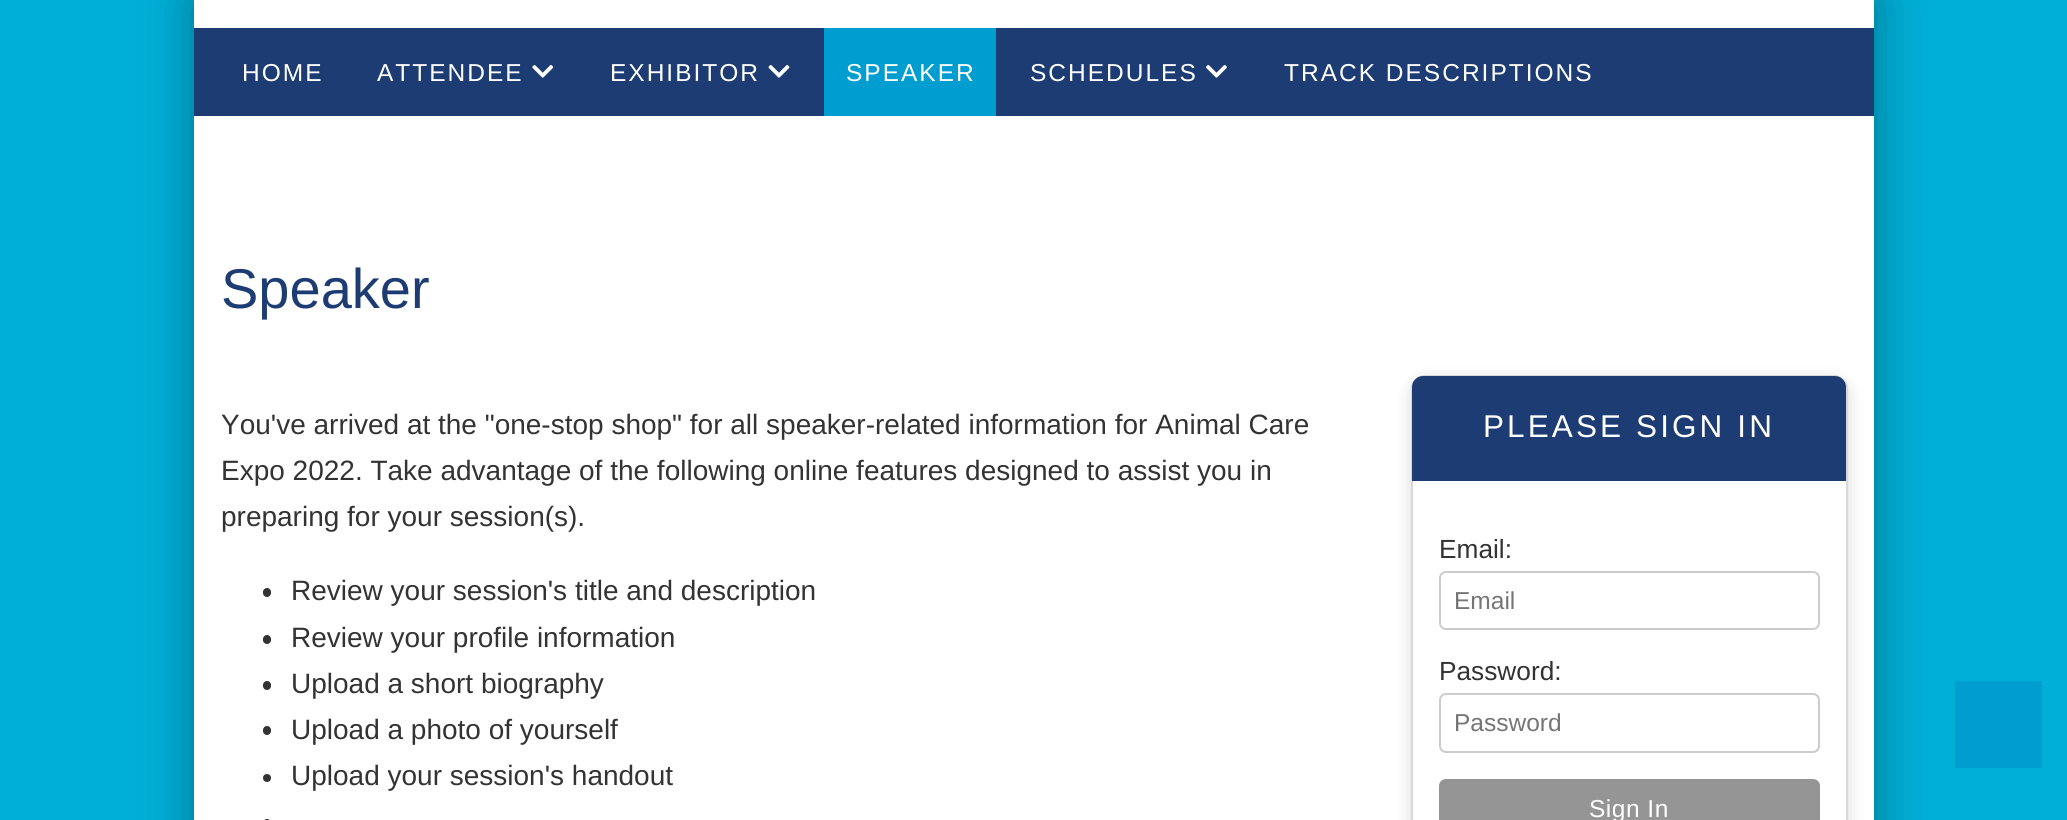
import math
import cairocffi as cairo

surface = cairo.ImageSurface(cairo.FORMAT_RGB24, 2067, 820)
ctx = cairo.Context(surface)
options = cairo.FontOptions()
options.set_hint_metrics(cairo.HINT_METRICS_OFF)
options.set_hint_style(cairo.HINT_STYLE_NONE)
ctx.set_font_options(options)
ctx.set_miter_limit(4)


def rgb(r, g, b):
    ctx.set_source_rgb(r / 255, g / 255, b / 255)


def face(family, size, italic, bold):
    ctx.select_font_face(family, cairo.FONT_SLANT_ITALIC if italic else cairo.FONT_SLANT_NORMAL, cairo.FONT_WEIGHT_BOLD if bold else cairo.FONT_WEIGHT_NORMAL)
    ctx.set_font_size(size)


def label(x, y, s):
    ctx.move_to(x, y)
    ctx.show_text(s)


def tracked(x, y, s, letter, word):
    ctx.move_to(x, y)
    for ch in s:
        ctx.show_text(ch)
        ctx.rel_move_to(letter + word * (ch == ' '), 0)


def rect(x, y, w, h):
    ctx.rectangle(x, y, w, h)
    ctx.fill()


def rrect(x, y, w, h, r):
    ctx.new_sub_path()
    for i, (u, v) in enumerate([(x + w - r, y + h - r), (x + r, y + h - r), (x + r, y + r), (x + w - r, y + r)]):
        ctx.arc(u, v, r, i * math.pi / 2, (i + 1) * math.pi / 2)
    ctx.close_path()


def soft_shadow(x, y, w, h, r, blur, alpha):
    ctx.push_group_with_content(cairo.CONTENT_ALPHA)
    ctx.set_operator(cairo.OPERATOR_SOURCE)
    for i in range(15, -16, -2):
        e = blur * i / 6
        if min(w, h) + 2 * e > 0:
            ctx.set_source_rgba(0, 0, 0, alpha * math.erfc((i - 1) / 8.5) / 2)
            rrect(x - e, y - e, w + 2 * e, h + 2 * e, max(0, min(r + e + blur * .6, min(w, h) / 2 + e)))
            ctx.fill()
    ctx.mask(ctx.pop_group())


def image(path, x, y, w, h):
    ctx.save()
    ctx.set_source_surface(cairo.ImageSurface.create_from_png(path), x, y)
    ctx.rectangle(x, y, w, h)
    ctx.fill()
    ctx.restore()


rgb(0, 175, 215)
ctx.paint()
rgb(0, 0, 0)
soft_shadow(194, 0, 1680, 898, 0, 26, 0.35)
rgb(255, 255, 255)
rect(194, 0, 1680, 820)
rgb(28, 60, 115)
rect(194, 28, 1680, 88)
face('Liberation Sans', 24.5, 0, 0)
rgb(255, 255, 255)
tracked(242, 81, 'HOME', 2, 0)
tracked(377, 81, 'ATTENDEE', 2, 0)
image('image0.png', 532, 65, 22, 13)
tracked(610, 81, 'EXHIBITOR', 2, 0)
image('image1.png', 768, 65, 22, 13)
rgb(0, 158, 208)
rect(824, 28, 172, 88)
rgb(255, 255, 255)
tracked(846, 81, 'SPEAKER', 2, 0)
tracked(1030, 81, 'SCHEDULES', 2, 0)
image('image2.png', 1206, 65, 21, 13)
tracked(1284, 81, 'TRACK DESCRIPTIONS', 2, 0)
face('Liberation Sans', 56, 0, 0)
rgb(28, 60, 115)
label(221, 308, 'Speaker')
face('Liberation Sans', 28, 0, 0)
rgb(51, 51, 51)
label(221, 434, 'You\'ve arrived at the "one-stop shop" for all speaker-related information for Animal Care')
label(221, 480, 'Expo 2022. Take advantage of the following online features designed to assist you in')
label(221, 526, 'preparing for your session(s).')
rrect(263, 588, 8, 9, 4)
ctx.fill()
label(291, 600, 'Review your session\'s title and description')
rrect(263, 635, 8, 9, 4)
ctx.fill()
label(291, 647, 'Review your profile information')
rrect(263, 681, 8, 9, 4)
ctx.fill()
label(291, 693, 'Upload a short biography')
rrect(263, 726, 8, 9, 4)
ctx.fill()
label(291, 739, 'Upload a photo of yourself')
ctx.new_path()
ctx.arc(267, 778, 4, 0, 2 * math.pi)
ctx.fill()
label(291, 785, 'Upload your session\'s handout')
rrect(263, 819, 8, 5, 4)
ctx.fill()
rgb(0, 0, 0)
soft_shadow(1411, 380, 437, 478, 14, 8, 0.15)
rgb(255, 255, 255)
rrect(1412, 376, 435, 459, 13)
ctx.fill_preserve()
rgb(217, 217, 217)
ctx.stroke()
rgb(28, 60, 115)
ctx.new_path()
ctx.move_to(1423, 376)
ctx.line_to(1835, 376)
ctx.curve_to(1841, 376, 1846, 381, 1846, 387)
ctx.line_to(1846, 481)
ctx.line_to(1412, 481)
ctx.line_to(1412, 387)
ctx.curve_to(1412, 381, 1417, 376, 1423, 376)
ctx.close_path()
ctx.fill()
face('Liberation Sans', 31.5, 0, 0)
rgb(255, 255, 255)
tracked(1483, 437, 'PLEASE SIGN IN', 3.1, 0)
face('Liberation Sans', 26.25, 0, 0)
rgb(51, 51, 51)
label(1439, 558, 'Email:')
rrect(1440, 572, 379, 57, 6)
rgb(204, 204, 204)
ctx.stroke()
face('Liberation Sans', 24.5, 0, 0)
rgb(117, 117, 117)
label(1454, 609, 'Email')
face('Liberation Sans', 26.25, 0, 0)
rgb(51, 51, 51)
label(1439, 680, 'Password:')
rrect(1440, 694, 379, 58, 6)
rgb(204, 204, 204)
ctx.stroke()
face('Liberation Sans', 24.5, 0, 0)
rgb(117, 117, 117)
label(1454, 731, 'Password')
rgb(149, 149, 149)
rrect(1439, 779, 381, 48, 7)
ctx.fill()
rgb(255, 255, 255)
tracked(1589, 817, 'Sign In', 0.5, 0)
rgb(0, 158, 208)
rect(1955, 681, 87, 87)
surface.write_to_png('render.png')
